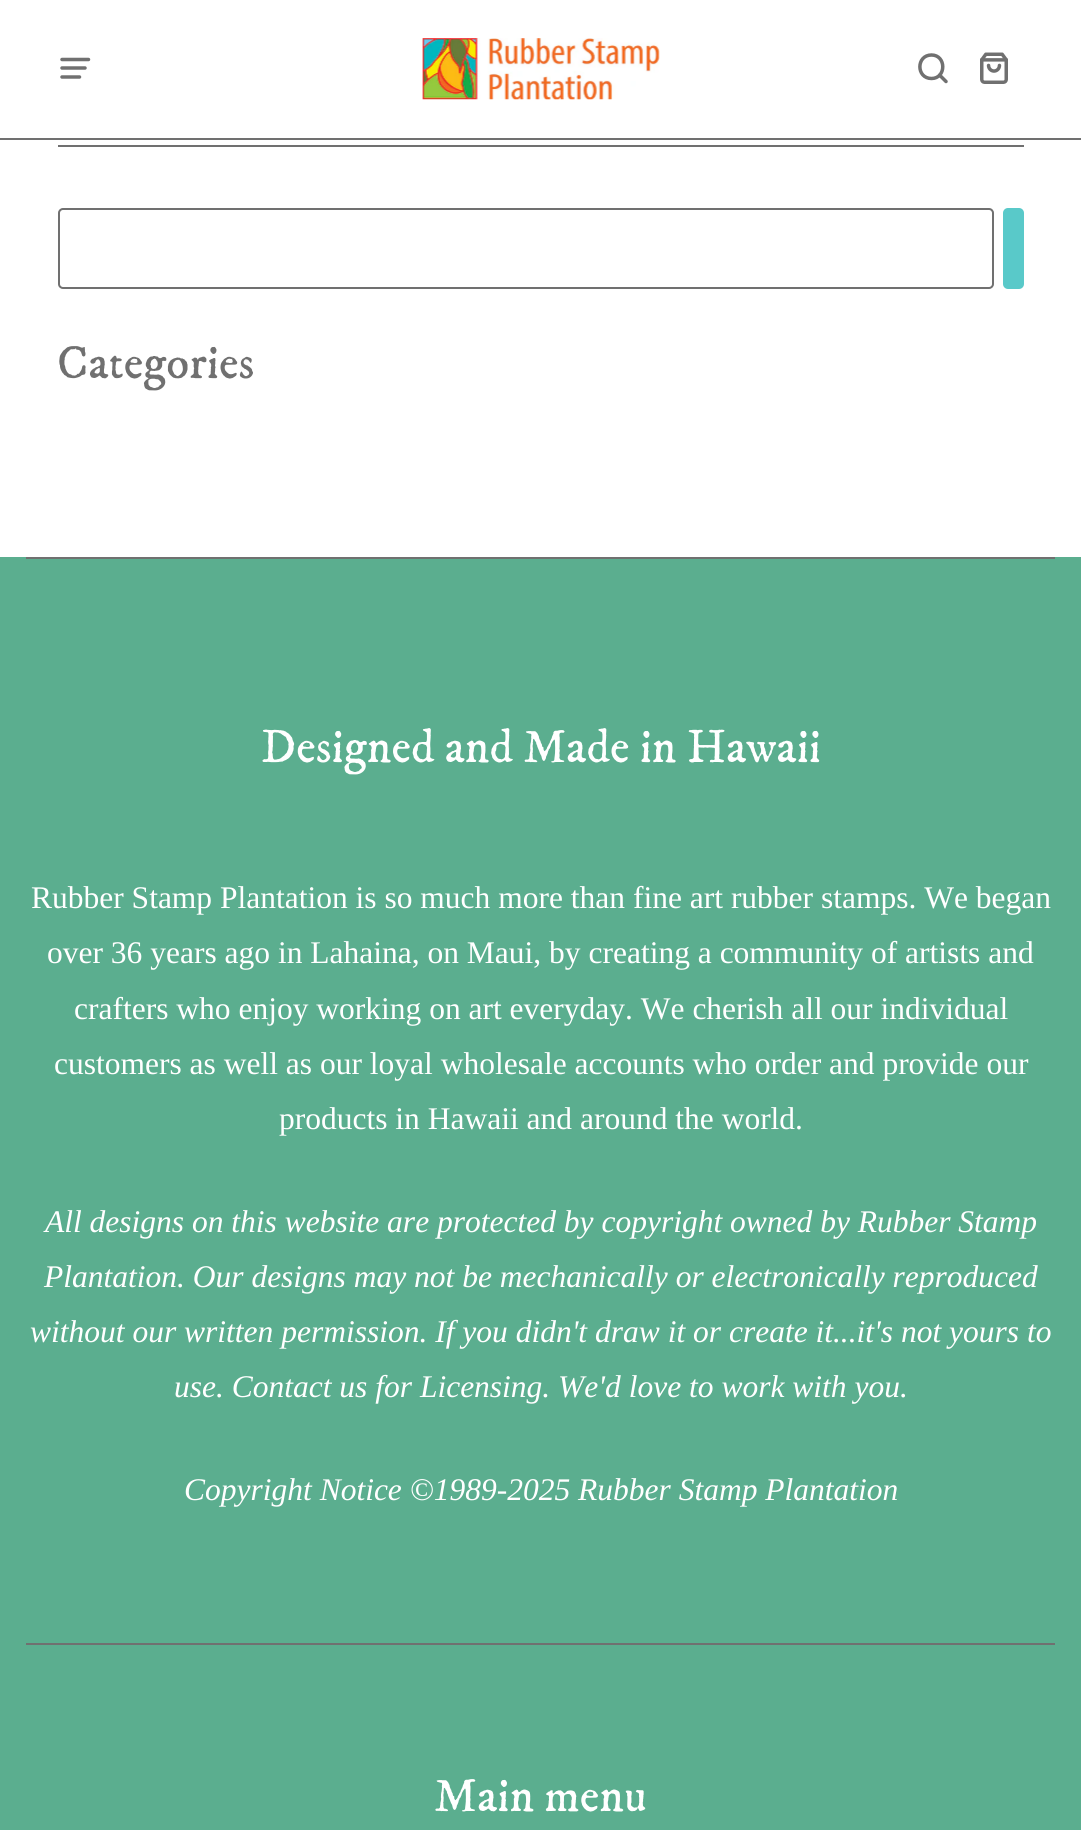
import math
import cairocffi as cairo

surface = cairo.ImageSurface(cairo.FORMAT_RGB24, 1081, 1830)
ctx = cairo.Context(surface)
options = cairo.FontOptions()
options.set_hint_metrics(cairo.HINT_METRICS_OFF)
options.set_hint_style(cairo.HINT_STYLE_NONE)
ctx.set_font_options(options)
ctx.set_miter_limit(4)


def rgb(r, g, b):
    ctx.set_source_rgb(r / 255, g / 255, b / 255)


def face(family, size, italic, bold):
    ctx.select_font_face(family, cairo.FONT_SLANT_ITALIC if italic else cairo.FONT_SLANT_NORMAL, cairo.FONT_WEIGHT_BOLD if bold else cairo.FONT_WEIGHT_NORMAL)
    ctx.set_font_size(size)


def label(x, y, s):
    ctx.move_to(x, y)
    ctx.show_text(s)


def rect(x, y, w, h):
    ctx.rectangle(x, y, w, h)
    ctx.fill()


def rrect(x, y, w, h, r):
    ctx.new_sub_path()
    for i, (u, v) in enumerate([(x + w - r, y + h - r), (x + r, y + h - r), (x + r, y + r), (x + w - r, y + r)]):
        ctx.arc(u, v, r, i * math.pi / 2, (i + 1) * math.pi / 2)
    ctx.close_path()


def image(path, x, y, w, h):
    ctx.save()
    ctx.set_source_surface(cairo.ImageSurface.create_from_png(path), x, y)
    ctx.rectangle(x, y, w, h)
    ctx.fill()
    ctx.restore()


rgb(255, 255, 255)
ctx.paint()
rgb(112, 112, 112)
rect(0, 138, 1081, 2)
ctx.new_path()
ctx.move_to(62, 59.5)
ctx.line_to(88.5, 59.5)
ctx.move_to(62, 68)
ctx.line_to(85, 68)
ctx.move_to(62, 77)
ctx.line_to(79.5, 77)
ctx.set_line_width(3.5)
ctx.set_line_cap(cairo.LINE_CAP_ROUND)
ctx.set_line_join(cairo.LINE_JOIN_ROUND)
ctx.stroke()
image('image0.png', 422, 38, 238, 62)
ctx.new_path()
ctx.move_to(931.5, 55)
ctx.curve_to(916, 55, 916, 78.5, 931.5, 78.5)
ctx.curve_to(946.5, 78.5, 946.5, 55, 931.5, 55)
ctx.close_path()
ctx.move_to(946, 81.5)
ctx.line_to(939.5, 75)
ctx.close_path()
ctx.stroke()
image('image1.png', 980, 52, 28, 32)
rect(58, 145, 966, 2)
rrect(59, 209, 934, 79, 4)
ctx.set_line_width(2)
ctx.set_line_cap(cairo.LINE_CAP_BUTT)
ctx.set_line_join(cairo.LINE_JOIN_MITER)
ctx.stroke()
rgb(89, 201, 201)
rrect(1003, 208, 21, 81, 5)
ctx.fill()
face('IM FELL DW Pica', 47.25, 0, 0)
rgb(112, 112, 112)
label(57, 378, 'Categories')
rgb(91, 174, 143)
rect(0, 557, 1081, 1273)
rgb(112, 112, 112)
rect(26, 557, 1029, 2)
rgb(255, 255, 255)
label(261, 762, 'Designed and Made in Hawaii')
face('Liberation Serif', 31.5, 0, 0)
label(31, 908, 'Rubber Stamp Plantation is so much more than fine art rubber stamps. We began')
label(47, 963, 'over 36 years ago in Lahaina, on Maui, by creating a community of artists and')
label(74, 1019, 'crafters who enjoy working on art everyday. We cherish all our individual')
label(54, 1074, 'customers as well as our loyal wholesale accounts who order and provide our')
label(279, 1129, 'products in Hawaii and around the world.')
face('Liberation Serif', 31.5, 1, 0)
label(45, 1232, 'All designs on this website are protected by copyright owned by Rubber Stamp')
label(44, 1287, 'Plantation. Our designs may not be mechanically or electronically reproduced')
label(30, 1342, 'without our written permission. If you didn\'t draw it or create it...it\'s not yours to')
label(174, 1397, 'use. Contact us for Licensing. We\'d love to work with you.')
label(184, 1500, 'Copyright Notice ©1989-2025 Rubber Stamp Plantation')
rgb(112, 112, 112)
rect(26, 1643, 1029, 2)
face('IM FELL DW Pica', 47.25, 0, 0)
rgb(255, 255, 255)
label(434, 1811, 'Main menu')
surface.write_to_png('render.png')
